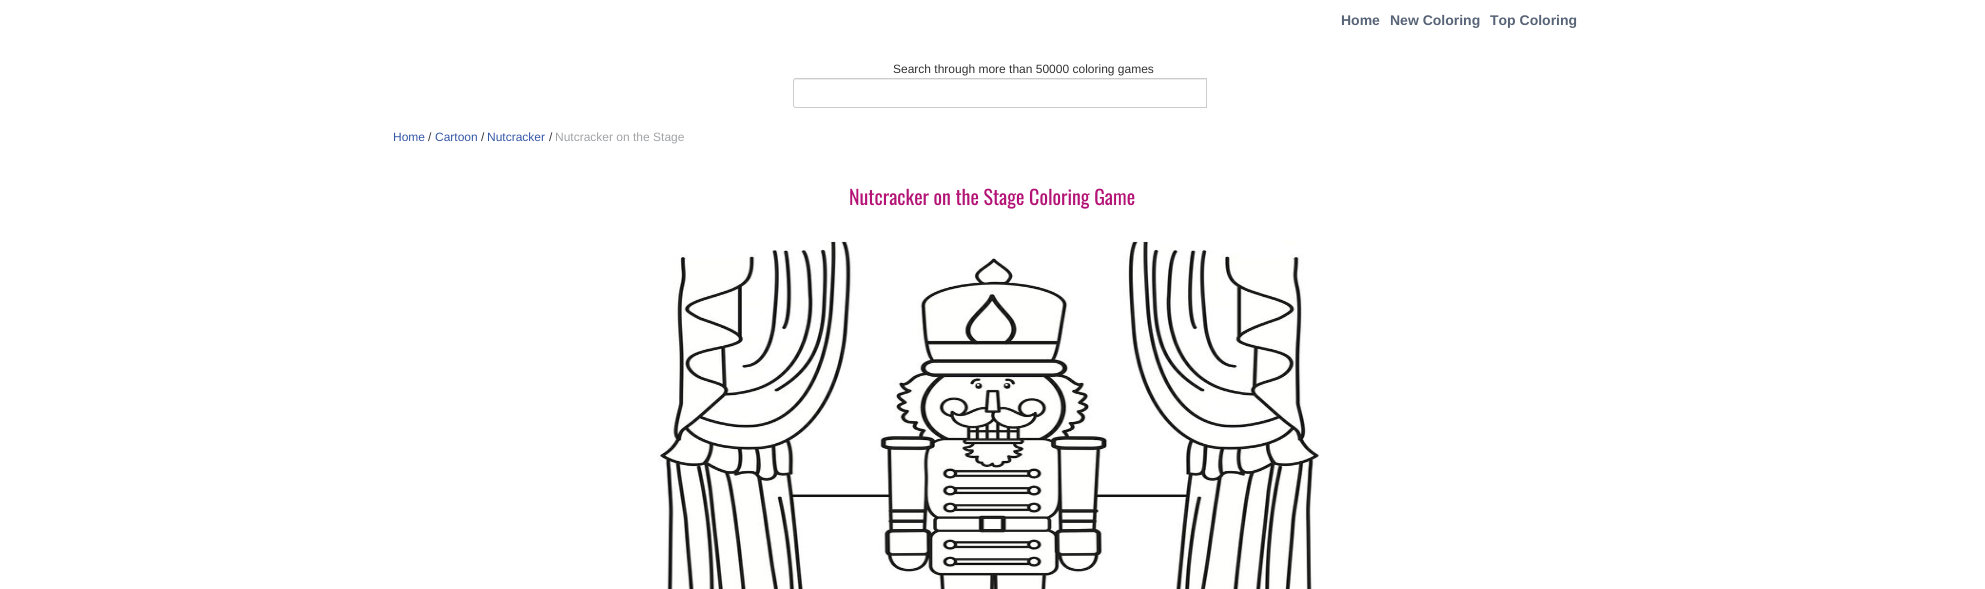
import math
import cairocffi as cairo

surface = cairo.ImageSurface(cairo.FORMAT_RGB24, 1985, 589)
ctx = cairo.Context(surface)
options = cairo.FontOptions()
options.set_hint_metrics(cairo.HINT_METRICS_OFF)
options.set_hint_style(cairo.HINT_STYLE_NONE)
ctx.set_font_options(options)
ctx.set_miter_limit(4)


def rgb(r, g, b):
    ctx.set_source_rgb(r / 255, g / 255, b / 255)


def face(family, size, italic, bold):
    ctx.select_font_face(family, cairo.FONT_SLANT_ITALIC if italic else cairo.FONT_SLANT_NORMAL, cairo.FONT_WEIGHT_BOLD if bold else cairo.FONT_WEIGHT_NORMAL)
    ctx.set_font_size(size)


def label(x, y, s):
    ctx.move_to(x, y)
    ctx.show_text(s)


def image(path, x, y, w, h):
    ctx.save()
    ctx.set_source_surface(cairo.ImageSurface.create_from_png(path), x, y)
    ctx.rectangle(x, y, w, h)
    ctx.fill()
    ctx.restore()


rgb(255, 255, 255)
ctx.paint()
face('Liberation Sans', 14, 0, 1)
rgb(87, 99, 118)
label(1341, 25, 'Home')
label(1390, 25, 'New Coloring')
label(1490, 25, 'Top Coloring')
face('Liberation Sans', 12, 0, 0)
rgb(51, 51, 51)
label(893, 73, 'Search through more than 50000 coloring games')
rgb(236, 236, 236)
ctx.new_path()
ctx.move_to(796, 80)
ctx.line_to(1206, 80)
ctx.line_to(1206, 79)
ctx.line_to(796, 79)
ctx.curve_to(794, 79, 794, 81, 794, 82)
ctx.curve_to(794, 81, 795, 80, 796, 80)
ctx.close_path()
ctx.fill()
ctx.new_path()
ctx.move_to(796, 78.5)
ctx.line_to(1206.5, 78.5)
ctx.line_to(1206.5, 107.5)
ctx.line_to(796, 107.5)
ctx.curve_to(794.5, 107.5, 793.5, 106.5, 793.5, 105)
ctx.line_to(793.5, 81)
ctx.curve_to(793.5, 79.5, 794.5, 78.5, 796, 78.5)
ctx.close_path()
rgb(204, 204, 204)
ctx.set_line_width(1)
ctx.stroke()
rgb(54, 87, 167)
label(393, 141, 'Home')
rgb(51, 51, 51)
label(428, 141, '/')
rgb(54, 87, 167)
label(435, 141, 'Cartoon')
rgb(51, 51, 51)
label(481, 141, '/')
rgb(54, 87, 167)
label(487, 141, 'Nutcracker')
rgb(51, 51, 51)
label(549, 141, '/')
rgb(161, 163, 166)
label(555, 141, 'Nutcracker on the Stage')
face('Oswald', 20, 0, 0)
rgb(180, 19, 118)
label(849, 205, 'Nutcracker on the Stage Coloring Game')
image('image0.png', 658, 240, 662, 349)
surface.write_to_png('render.png')
